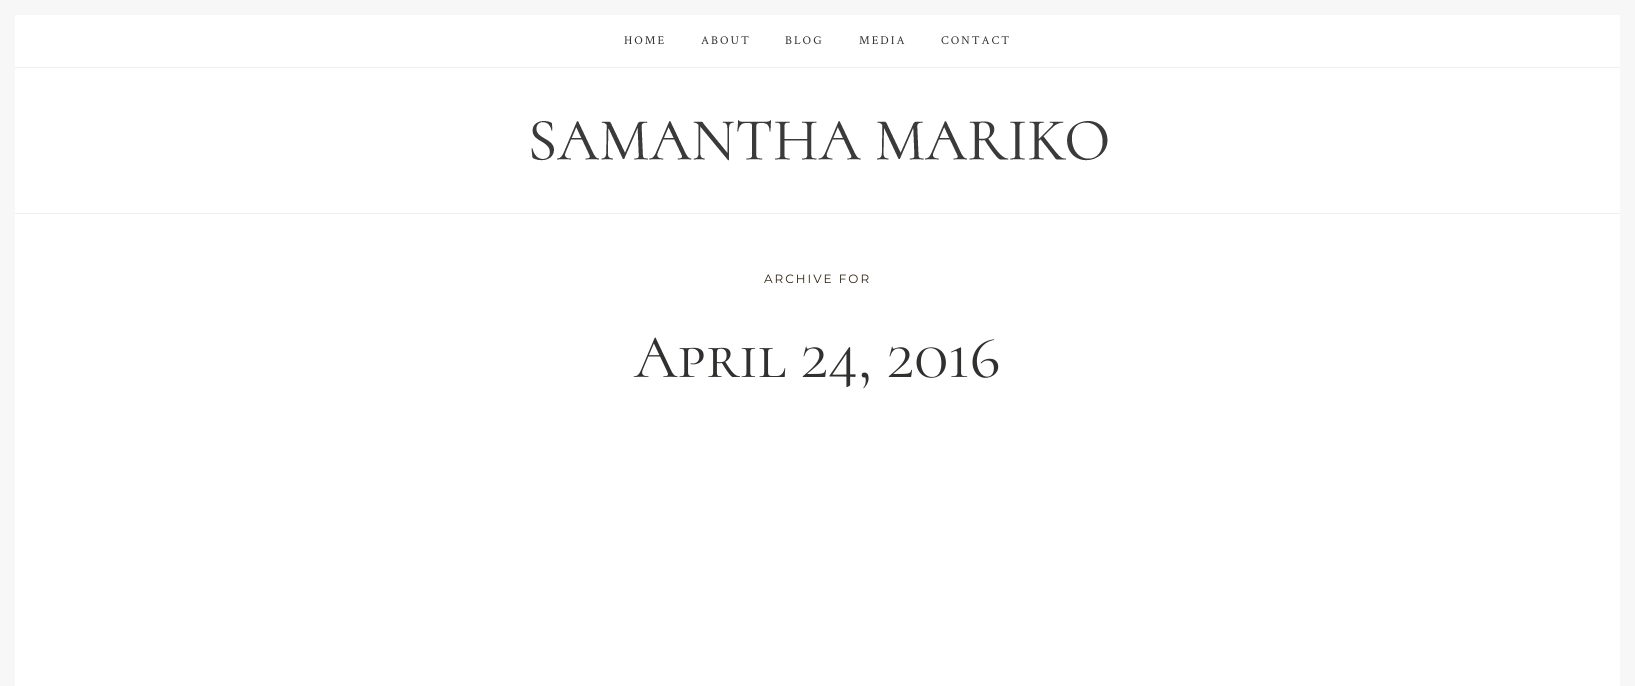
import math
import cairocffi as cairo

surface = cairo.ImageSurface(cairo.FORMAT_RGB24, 1635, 686)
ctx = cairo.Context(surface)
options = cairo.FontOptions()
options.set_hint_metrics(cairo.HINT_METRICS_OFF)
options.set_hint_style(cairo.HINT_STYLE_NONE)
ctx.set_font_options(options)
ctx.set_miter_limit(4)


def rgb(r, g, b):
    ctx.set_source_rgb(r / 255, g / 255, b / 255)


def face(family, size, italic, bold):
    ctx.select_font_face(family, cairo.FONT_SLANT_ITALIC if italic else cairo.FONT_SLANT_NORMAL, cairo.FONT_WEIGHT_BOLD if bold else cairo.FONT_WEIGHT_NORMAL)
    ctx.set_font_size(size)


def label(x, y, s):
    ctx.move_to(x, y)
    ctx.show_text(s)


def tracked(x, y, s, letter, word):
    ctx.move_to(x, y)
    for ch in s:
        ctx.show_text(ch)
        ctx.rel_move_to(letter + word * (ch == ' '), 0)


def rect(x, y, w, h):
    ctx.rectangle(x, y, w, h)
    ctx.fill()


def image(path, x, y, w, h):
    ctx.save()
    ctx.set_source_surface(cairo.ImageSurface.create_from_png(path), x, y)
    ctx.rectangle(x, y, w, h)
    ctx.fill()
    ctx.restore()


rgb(255, 255, 255)
ctx.paint()
ctx.rectangle(7.5, 7.5, 1620, 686)
rgb(247, 247, 247)
ctx.set_line_width(15)
ctx.stroke()
rgb(238, 238, 238)
rect(15, 67, 1605, 1)
face('Crimson Text', 12, 0, 0)
rgb(49, 48, 46)
tracked(624, 44, 'HOME', 2, 0)
tracked(701, 44, 'ABOUT', 2, 0)
tracked(785, 44, 'BLOG', 2, 0)
tracked(859, 44, 'MEDIA', 2, 0)
tracked(941, 44, 'CONTACT', 2, 0)
rgb(238, 238, 238)
rect(15, 213, 1605, 1)
image('image0.png', 531, 120, 577, 41)
face('Montserrat', 12, 0, 0)
rgb(46, 33, 15)
tracked(764, 283, 'ARCHIVE FOR', 2, 0)
face('Cormorant SC', 62, 0, 0)
rgb(49, 48, 46)
label(634, 377, 'April 24, 2016')
surface.write_to_png('render.png')
